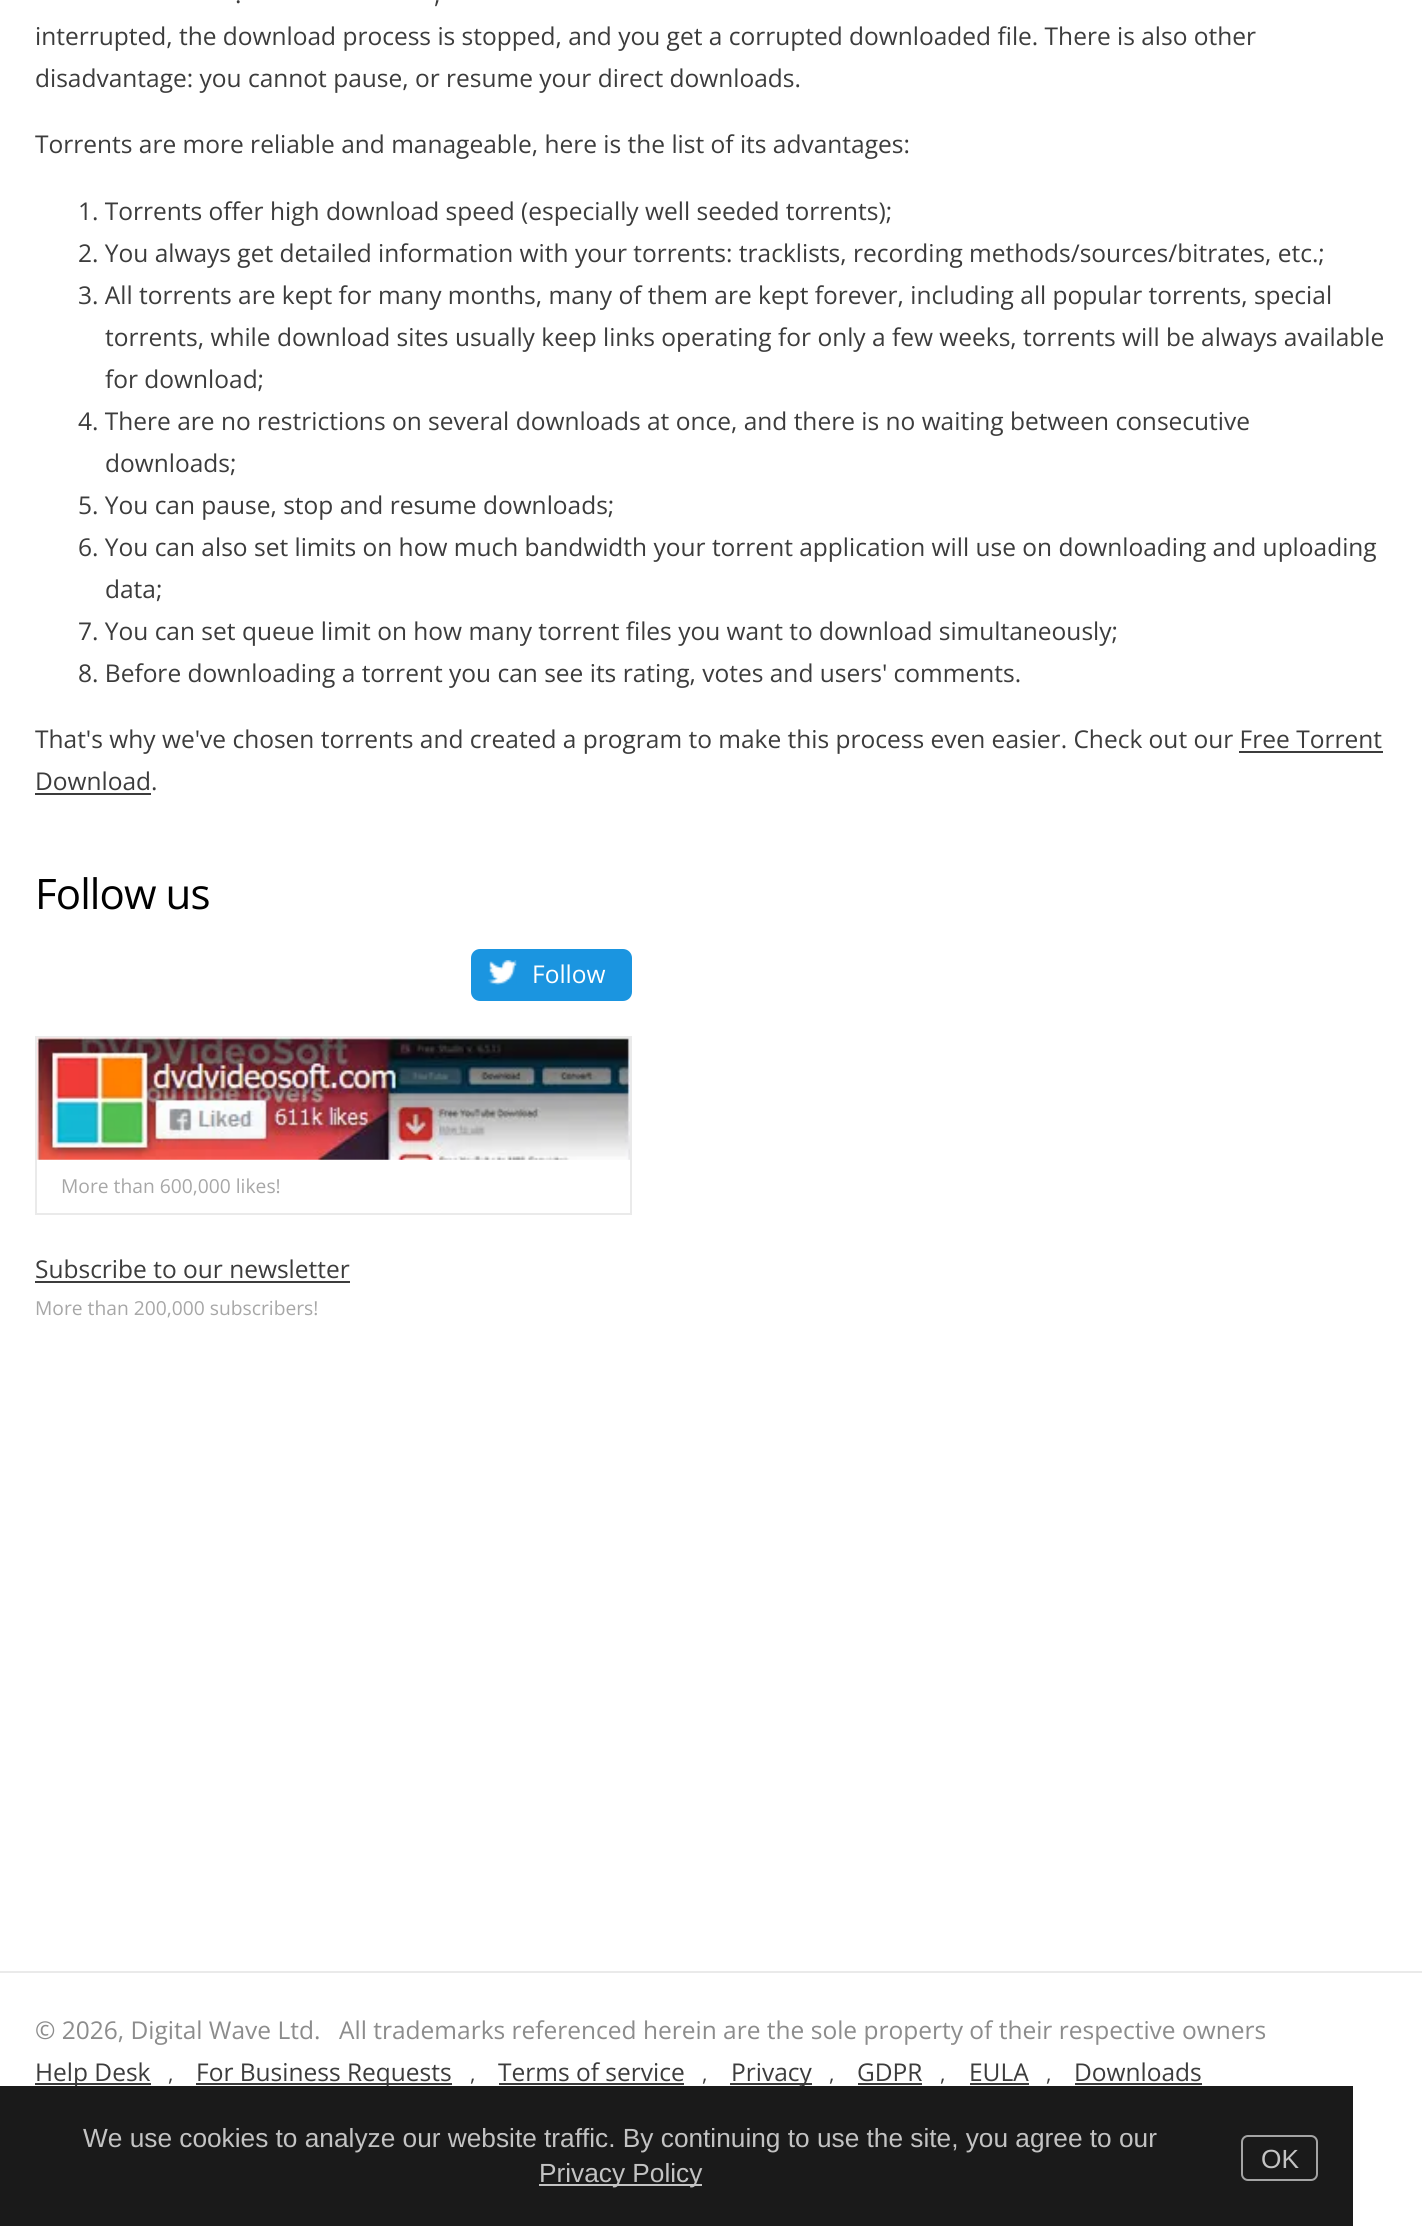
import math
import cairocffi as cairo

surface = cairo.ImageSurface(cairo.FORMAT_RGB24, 1422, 2226)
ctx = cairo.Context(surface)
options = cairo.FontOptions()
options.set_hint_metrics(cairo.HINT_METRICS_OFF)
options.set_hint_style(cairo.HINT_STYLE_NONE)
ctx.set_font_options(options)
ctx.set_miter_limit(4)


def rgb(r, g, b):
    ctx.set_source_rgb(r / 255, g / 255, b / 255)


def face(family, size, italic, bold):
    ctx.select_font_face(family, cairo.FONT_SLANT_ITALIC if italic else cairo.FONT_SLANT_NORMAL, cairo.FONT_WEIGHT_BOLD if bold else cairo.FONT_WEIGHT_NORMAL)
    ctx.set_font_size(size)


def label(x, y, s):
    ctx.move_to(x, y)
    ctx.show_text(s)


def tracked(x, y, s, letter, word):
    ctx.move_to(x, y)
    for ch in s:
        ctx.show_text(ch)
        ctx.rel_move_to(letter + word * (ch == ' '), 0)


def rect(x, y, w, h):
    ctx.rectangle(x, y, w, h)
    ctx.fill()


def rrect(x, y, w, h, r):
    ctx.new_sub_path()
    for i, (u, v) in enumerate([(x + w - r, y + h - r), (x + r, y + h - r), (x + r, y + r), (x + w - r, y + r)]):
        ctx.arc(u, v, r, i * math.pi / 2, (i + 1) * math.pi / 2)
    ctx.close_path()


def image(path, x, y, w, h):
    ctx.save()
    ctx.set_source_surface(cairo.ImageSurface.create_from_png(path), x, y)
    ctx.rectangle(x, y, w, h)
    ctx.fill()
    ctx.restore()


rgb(255, 255, 255)
ctx.paint()
face('Open Sans', 24.5, 0, 0)
rgb(60, 60, 60)
label(235, 3, '.')
label(434, 3, ',')
label(35, 45, 'interrupted, the download process is stopped, and you get a corrupted downloaded file. There is also other')
label(35, 87, 'disadvantage: you cannot pause, or resume your direct downloads.')
label(35, 153, 'Torrents are more reliable and manageable, here is the list of its advantages:')
label(78, 220, '1. Torrents offer high download speed (especially well seeded torrents);')
label(78, 262, '2. You always get detailed information with your torrents: tracklists, recording methods/sources/bitrates, etc.;')
label(78, 304, '3. All torrents are kept for many months, many of them are kept forever, including all popular torrents, special')
label(105, 346, 'torrents, while download sites usually keep links operating for only a few weeks, torrents will be always available')
label(105, 388, 'for download;')
label(78, 430, '4. There are no restrictions on several downloads at once, and there is no waiting between consecutive')
label(105, 472, 'downloads;')
label(78, 514, '5. You can pause, stop and resume downloads;')
label(78, 556, '6. You can also set limits on how much bandwidth your torrent application will use on downloading and uploading')
label(105, 598, 'data;')
label(78, 640, '7. You can set queue limit on how many torrent files you want to download simultaneously;')
label(78, 682, '8. Before downloading a torrent you can see its rating, votes and users\' comments.')
label(35, 748, 'That\'s why we\'ve chosen torrents and created a program to make this process even easier. Check out our Free Torrent')
label(35, 790, 'Download.')
rect(1239, 751, 144, 2)
rect(35, 793, 116, 2)
face('Open Sans', 42, 0, 0)
rgb(0, 0, 0)
tracked(35, 909, 'Follow us', -0.9, 0)
rgb(27, 149, 224)
rrect(471, 949, 161, 52, 9)
ctx.fill()
image('image0.png', 488, 960, 29, 25)
face('Open Sans', 24.5, 0, 0)
rgb(255, 255, 255)
label(532, 983, 'Follow')
ctx.rectangle(36, 1037, 595, 177)
rgb(234, 234, 234)
ctx.stroke()
image('image1.png', 37, 1037, 593, 123)
face('Open Sans', 19.25, 0, 0)
rgb(167, 167, 167)
label(61, 1193, 'More than 600,000 likes!')
face('Open Sans', 24.5, 0, 0)
rgb(60, 60, 60)
label(35, 1278, 'Subscribe to our newsletter')
rect(35, 1281, 315, 2)
face('Open Sans', 19.25, 0, 0)
rgb(167, 167, 167)
label(35, 1315, 'More than 200,000 subscribers!')
rgb(234, 234, 234)
rect(0, 1971, 1422, 2)
face('Open Sans', 24.5, 0, 0)
rgb(140, 140, 140)
label(35, 2039, '© 2026, Digital Wave Ltd.')
label(339, 2039, 'All trademarks referenced herein are the sole property of their respective owners')
rgb(60, 60, 60)
rect(35, 2083, 116, 2)
label(35, 2081, 'Help Desk')
face('Open Sans', 21, 0, 0)
label(168, 2081, ',')
rect(196, 2083, 256, 2)
face('Open Sans', 24.5, 0, 0)
label(196, 2081, 'For Business Requests')
face('Open Sans', 21, 0, 0)
label(470, 2081, ',')
face('Open Sans', 24.5, 0, 0)
label(498, 2081, 'Terms of service')
rect(499, 2083, 185, 2)
face('Open Sans', 21, 0, 0)
label(702, 2081, ',')
rect(730, 2083, 82, 2)
face('Open Sans', 24.5, 0, 0)
label(731, 2081, 'Privacy')
face('Open Sans', 21, 0, 0)
label(829, 2081, ',')
face('Open Sans', 24.5, 0, 0)
label(857, 2081, 'GDPR')
rect(858, 2083, 64, 2)
face('Open Sans', 21, 0, 0)
label(940, 2081, ',')
face('Open Sans', 24.5, 0, 0)
label(969, 2081, 'EULA')
rect(970, 2083, 59, 2)
face('Open Sans', 21, 0, 0)
label(1046, 2081, ',')
face('Open Sans', 24.5, 0, 0)
label(1074, 2081, 'Downloads')
rect(1075, 2083, 127, 2)
rgb(26, 26, 26)
rect(0, 2086, 1353, 140)
face('Liberation Sans', 26.25, 0, 0)
rgb(195, 195, 195)
label(83, 2147, 'We use cookies to analyze our website traffic. By continuing to use the site, you agree to our')
rect(539, 2184, 163, 2)
label(539, 2182, 'Privacy Policy')
rrect(1242, 2136, 75, 44, 6)
rgb(164, 164, 164)
ctx.stroke()
rgb(195, 195, 195)
label(1261, 2168, 'OK')
surface.write_to_png('render.png')
